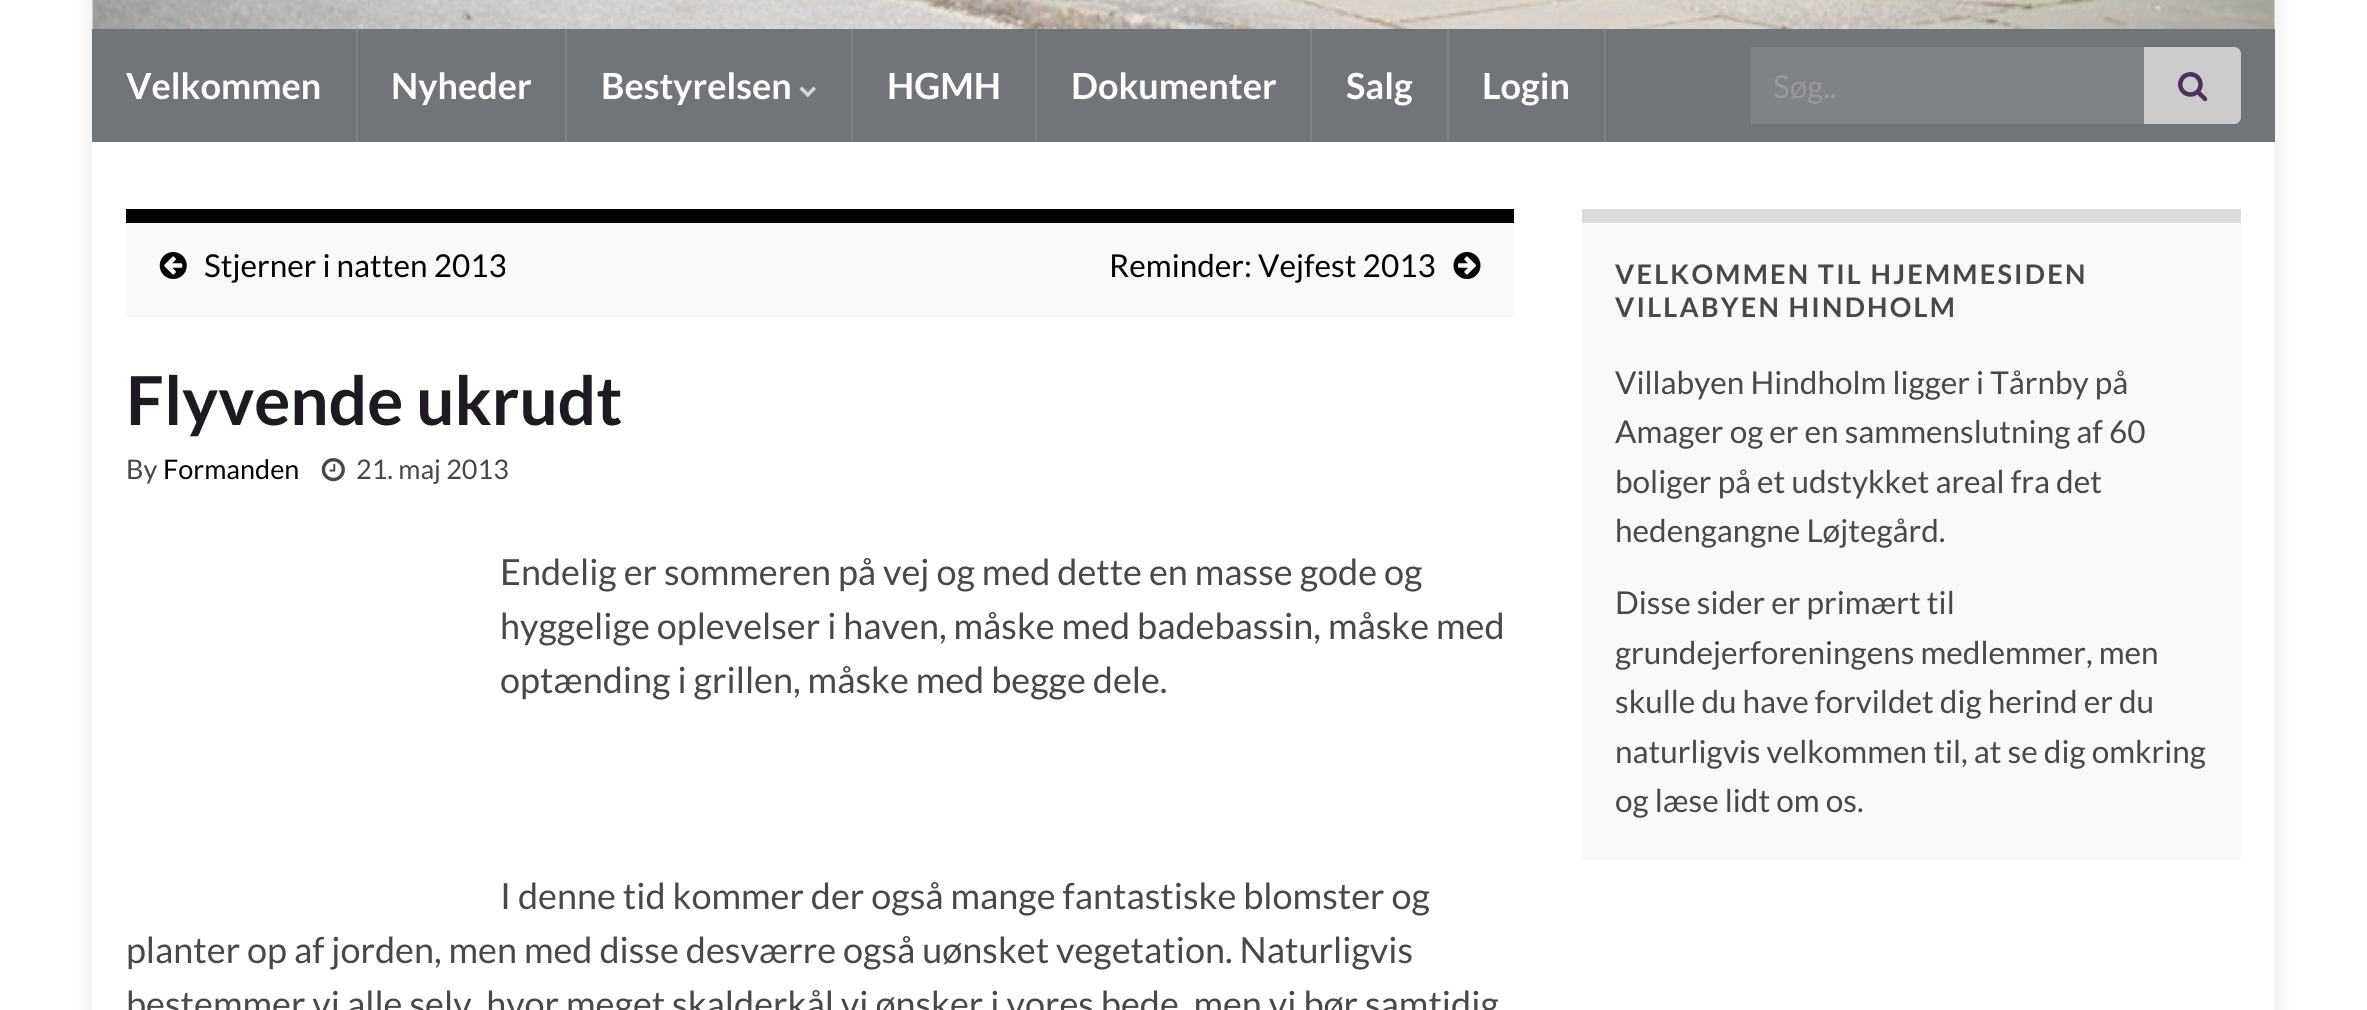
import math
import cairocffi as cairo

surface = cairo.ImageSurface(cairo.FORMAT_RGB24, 2367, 1010)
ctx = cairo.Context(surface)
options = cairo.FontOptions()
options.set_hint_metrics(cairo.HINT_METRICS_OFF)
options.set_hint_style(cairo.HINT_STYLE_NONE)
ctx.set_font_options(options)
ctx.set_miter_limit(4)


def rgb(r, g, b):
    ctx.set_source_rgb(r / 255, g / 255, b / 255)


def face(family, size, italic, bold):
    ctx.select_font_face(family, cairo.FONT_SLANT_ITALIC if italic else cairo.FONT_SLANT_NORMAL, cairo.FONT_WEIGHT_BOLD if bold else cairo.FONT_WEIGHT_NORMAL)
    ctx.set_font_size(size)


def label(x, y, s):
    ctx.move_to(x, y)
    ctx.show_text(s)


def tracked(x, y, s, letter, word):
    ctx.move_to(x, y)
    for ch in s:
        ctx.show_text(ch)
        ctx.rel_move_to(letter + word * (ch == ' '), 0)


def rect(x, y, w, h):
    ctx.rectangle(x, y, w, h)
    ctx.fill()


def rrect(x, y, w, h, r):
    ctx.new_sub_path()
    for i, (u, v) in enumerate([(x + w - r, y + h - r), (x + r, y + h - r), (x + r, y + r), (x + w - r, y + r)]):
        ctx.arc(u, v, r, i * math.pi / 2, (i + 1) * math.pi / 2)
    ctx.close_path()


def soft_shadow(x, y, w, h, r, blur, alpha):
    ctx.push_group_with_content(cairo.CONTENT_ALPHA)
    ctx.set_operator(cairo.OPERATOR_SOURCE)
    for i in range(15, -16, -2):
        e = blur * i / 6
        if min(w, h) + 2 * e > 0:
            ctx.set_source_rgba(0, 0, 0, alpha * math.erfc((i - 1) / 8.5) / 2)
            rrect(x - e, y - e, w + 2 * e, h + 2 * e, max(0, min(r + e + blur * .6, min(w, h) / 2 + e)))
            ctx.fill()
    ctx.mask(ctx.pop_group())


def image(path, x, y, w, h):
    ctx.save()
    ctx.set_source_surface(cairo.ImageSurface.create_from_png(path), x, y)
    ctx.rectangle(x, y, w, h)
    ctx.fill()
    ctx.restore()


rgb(255, 255, 255)
ctx.paint()
rgb(0, 0, 0)
soft_shadow(92, -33, 2183, 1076, 0, 11, 0.1)
rgb(255, 255, 255)
rect(92, 0, 2183, 29)
image('image0.png', 92, 0, 2183, 29)
rgb(113, 117, 122)
rect(92, 29, 2183, 113)
rgb(127, 131, 135)
rect(356, 29, 2, 113)
face('Lato', 36, 0, 1)
rgb(255, 255, 255)
label(126, 99, 'Velkommen')
rgb(127, 131, 135)
rect(565, 29, 2, 113)
rgb(255, 255, 255)
label(391, 99, 'Nyheder')
rgb(127, 131, 135)
rect(851, 29, 2, 113)
rgb(255, 255, 255)
label(601, 99, 'Bestyrelsen')
image('image1.png', 799, 86, 17, 11)
rgb(127, 131, 135)
rect(1035, 29, 2, 113)
rgb(255, 255, 255)
label(887, 99, 'HGMH')
rgb(127, 131, 135)
rect(1310, 29, 2, 113)
rgb(255, 255, 255)
label(1071, 99, 'Dokumenter')
rgb(127, 131, 135)
rect(1447, 29, 2, 113)
rgb(255, 255, 255)
label(1346, 99, 'Salg')
rgb(127, 131, 135)
rect(1604, 29, 2, 113)
rgb(255, 255, 255)
label(1482, 99, 'Login')
rgb(127, 131, 135)
rect(1751, 47, 393, 77)
face('Lato', 31.5, 0, 0)
rgb(153, 153, 153)
label(1773, 98, 'Søg..')
rgb(204, 204, 204)
ctx.new_path()
ctx.move_to(2144, 47)
ctx.line_to(2234, 47)
ctx.curve_to(2238, 47, 2241, 50, 2241, 54)
ctx.line_to(2241, 117)
ctx.curve_to(2241, 121, 2238, 124, 2234, 124)
ctx.line_to(2144, 124)
ctx.close_path()
ctx.fill()
image('image2.png', 2178, 72, 30, 30)
rgb(255, 255, 255)
rect(92, 142, 2183, 868)
rgb(249, 249, 249)
rect(126, 223, 1388, 94)
rgb(0, 0, 0)
rect(126, 209, 1388, 14)
image('image3.png', 159, 252, 28, 27)
rgb(5, 1, 1)
label(204, 277, 'Stjerner i natten 2013')
label(1109, 277, 'Reminder: Vejfest 2013')
image('image4.png', 1453, 252, 28, 27)
face('Lato', 67.5, 0, 1)
rgb(31, 26, 34)
label(126, 425, 'Flyvende ukrudt')
face('Lato', 27, 0, 0)
rgb(74, 71, 75)
label(126, 479, 'By')
rgb(5, 1, 1)
label(163, 479, 'Formanden')
image('image5.png', 321, 458, 24, 24)
rgb(74, 71, 75)
label(356, 479, '21. maj 2013')
face('Lato', 36, 0, 0)
label(500, 585, 'Endelig er sommeren på vej og med dette en masse gode og')
label(500, 639, 'hyggelige oplevelser i haven, måske med badebassin, måske med')
label(500, 693, 'optænding i grillen, måske med begge dele.')
label(500, 909, 'I denne tid kommer der også mange fantastiske blomster og')
label(126, 963, 'planter op af jorden, men med disse desværre også uønsket vegetation. Naturligvis')
label(126, 1017, 'bestemmer vi alle selv, hvor meget skalderkål vi ønsker i vores bede, men vi bør samtidig')
rgb(249, 249, 249)
rect(1582, 223, 659, 637)
rgb(219, 219, 219)
rect(1582, 209, 659, 14)
face('Lato', 27, 0, 1)
rgb(74, 71, 75)
tracked(1615, 284, 'VELKOMMEN TIL HJEMMESIDEN', 2.25, 0)
tracked(1615, 317, 'VILLABYEN HINDHOLM', 2.25, 0)
face('Lato', 31.5, 0, 0)
label(1615, 394, 'Villabyen Hindholm ligger i Tårnby på')
label(1615, 443, 'Amager og er en sammenslutning af 60')
label(1615, 493, 'boliger på et udstykket areal fra det')
label(1615, 542, 'hedengangne Løjtegård.')
label(1615, 614, 'Disse sider er primært til')
label(1615, 664, 'grundejerforeningens medlemmer, men')
label(1615, 713, 'skulle du have forvildet dig herind er du')
label(1615, 763, 'naturligvis velkommen til, at se dig omkring')
label(1615, 812, 'og læse lidt om os.')
surface.write_to_png('render.png')
